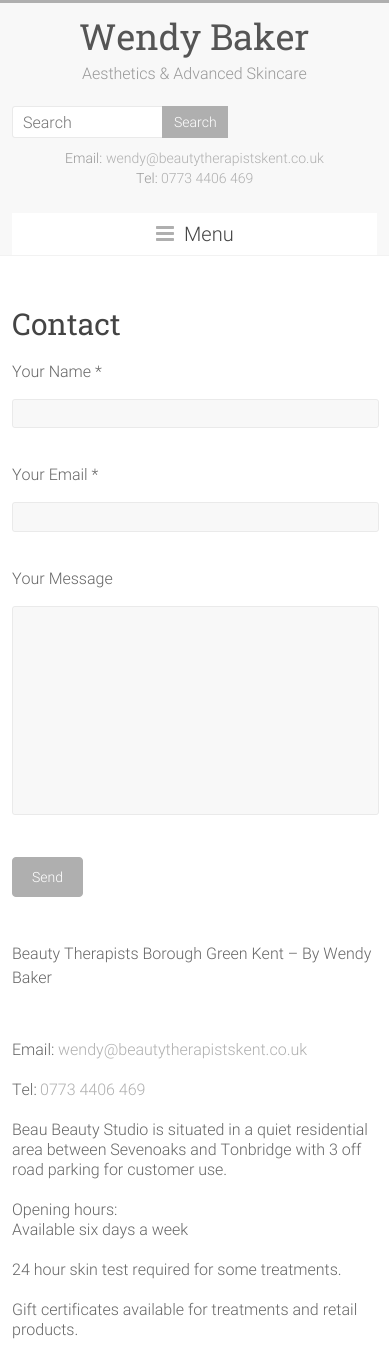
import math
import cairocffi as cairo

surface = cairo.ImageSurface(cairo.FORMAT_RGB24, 389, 1347)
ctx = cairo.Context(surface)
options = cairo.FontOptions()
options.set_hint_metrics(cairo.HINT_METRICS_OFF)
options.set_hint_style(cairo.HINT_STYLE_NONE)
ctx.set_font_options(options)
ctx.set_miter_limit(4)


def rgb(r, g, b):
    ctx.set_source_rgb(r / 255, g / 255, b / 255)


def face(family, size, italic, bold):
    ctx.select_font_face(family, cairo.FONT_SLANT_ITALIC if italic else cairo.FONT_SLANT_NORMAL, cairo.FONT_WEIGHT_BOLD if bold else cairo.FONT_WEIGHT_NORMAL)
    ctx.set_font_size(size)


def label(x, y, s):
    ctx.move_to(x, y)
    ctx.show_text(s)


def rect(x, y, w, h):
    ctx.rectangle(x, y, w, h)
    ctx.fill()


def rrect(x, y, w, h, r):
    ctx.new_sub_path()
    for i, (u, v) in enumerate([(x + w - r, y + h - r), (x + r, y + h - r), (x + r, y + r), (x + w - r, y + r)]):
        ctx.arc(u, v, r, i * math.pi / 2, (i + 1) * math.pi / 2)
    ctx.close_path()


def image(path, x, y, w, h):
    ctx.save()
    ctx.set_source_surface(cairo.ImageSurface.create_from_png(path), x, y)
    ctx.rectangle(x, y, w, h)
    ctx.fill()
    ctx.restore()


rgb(255, 255, 255)
ctx.paint()
rgb(175, 175, 175)
rect(0, 0, 389, 3)
rgb(248, 248, 248)
rect(0, 3, 389, 252)
rgb(242, 242, 242)
rect(0, 255, 389, 1)
face('Roboto Slab', 36, 0, 0)
rgb(85, 85, 85)
label(79, 50, 'Wendy Baker')
face('Roboto Light', 16, 0, 0)
rgb(153, 153, 153)
label(82, 79, 'Aesthetics & Advanced Skincare')
rgb(255, 255, 255)
ctx.new_path()
ctx.move_to(15, 106)
ctx.line_to(162, 106)
ctx.line_to(162, 138)
ctx.line_to(15, 138)
ctx.curve_to(13.5, 138, 12, 136.5, 12, 135)
ctx.line_to(12, 109)
ctx.curve_to(12, 107.5, 13.5, 106, 15, 106)
ctx.close_path()
ctx.fill()
rgb(234, 234, 234)
ctx.set_fill_rule(cairo.FILL_RULE_EVEN_ODD)
ctx.new_path()
ctx.move_to(15, 106)
ctx.line_to(162, 106)
ctx.line_to(162, 138)
ctx.line_to(15, 138)
ctx.curve_to(13, 138, 12, 137, 12, 135)
ctx.line_to(12, 109)
ctx.curve_to(12, 107, 13, 106, 15, 106)
ctx.close_path()
ctx.move_to(15, 107)
ctx.line_to(162, 107)
ctx.line_to(162, 137)
ctx.line_to(15, 137)
ctx.curve_to(14, 137, 13, 136, 13, 135)
ctx.line_to(13, 109)
ctx.curve_to(13, 108, 14, 107, 15, 107)
ctx.close_path()
ctx.fill()
rgb(117, 117, 117)
label(23, 128, 'Search')
rgb(175, 175, 175)
rect(162, 106, 66, 32)
face('Roboto Light', 14, 0, 0)
rgb(255, 255, 255)
label(174, 127, 'Search')
rgb(153, 153, 153)
label(65, 163, 'Email:')
rgb(175, 175, 175)
label(106, 163, 'wendy@beautytherapistskent.co.uk')
rgb(153, 153, 153)
label(136, 183, 'Tel:')
rgb(175, 175, 175)
label(161, 183, '0773 4406 469')
rgb(255, 255, 255)
rect(12, 213, 365, 42)
image('image0.png', 156, 226, 18, 15)
face('Roboto Light', 20, 0, 0)
rgb(68, 68, 68)
label(184, 241, 'Menu')
face('Roboto Slab', 30, 0, 0)
label(12, 335, 'Contact')
face('Roboto Light', 16, 0, 0)
rgb(102, 102, 102)
label(12, 377, 'Your Name *')
rgb(248, 248, 248)
rrect(12.5, 399.5, 366, 28, 2.5)
ctx.fill_preserve()
rgb(234, 234, 234)
ctx.set_line_width(1)
ctx.stroke()
rgb(102, 102, 102)
label(12, 480, 'Your Email *')
rgb(248, 248, 248)
rrect(12.5, 502.5, 366, 29, 2.5)
ctx.fill_preserve()
rgb(234, 234, 234)
ctx.stroke()
rgb(102, 102, 102)
label(12, 584, 'Your Message')
rgb(248, 248, 248)
rrect(12.5, 606.5, 366, 208, 2.5)
ctx.fill_preserve()
rgb(234, 234, 234)
ctx.stroke()
rgb(175, 175, 175)
rrect(12, 857, 71, 40, 4)
ctx.fill()
face('Roboto Light', 14, 0, 0)
rgb(255, 255, 255)
label(32, 882, 'Send')
face('Roboto Light', 16, 0, 0)
rgb(102, 102, 102)
label(12, 959, 'Beauty Therapists Borough Green Kent – By Wendy')
label(12, 983, 'Baker')
label(12, 1055, 'Email:')
rgb(175, 175, 175)
label(58, 1055, 'wendy@beautytherapistskent.co.uk')
rgb(102, 102, 102)
label(12, 1095, 'Tel:')
rgb(175, 175, 175)
label(40, 1095, '0773 4406 469')
rgb(102, 102, 102)
label(12, 1135, 'Beau Beauty Studio is situated in a quiet residential')
label(12, 1155, 'area between Sevenoaks and Tonbridge with 3 off')
label(12, 1175, 'road parking for customer use.')
label(12, 1215, 'Opening hours:')
label(12, 1235, 'Available six days a week')
label(12, 1275, '24 hour skin test required for some treatments.')
label(12, 1315, 'Gift certificates available for treatments and retail')
label(12, 1335, 'products.')
surface.write_to_png('render.png')
